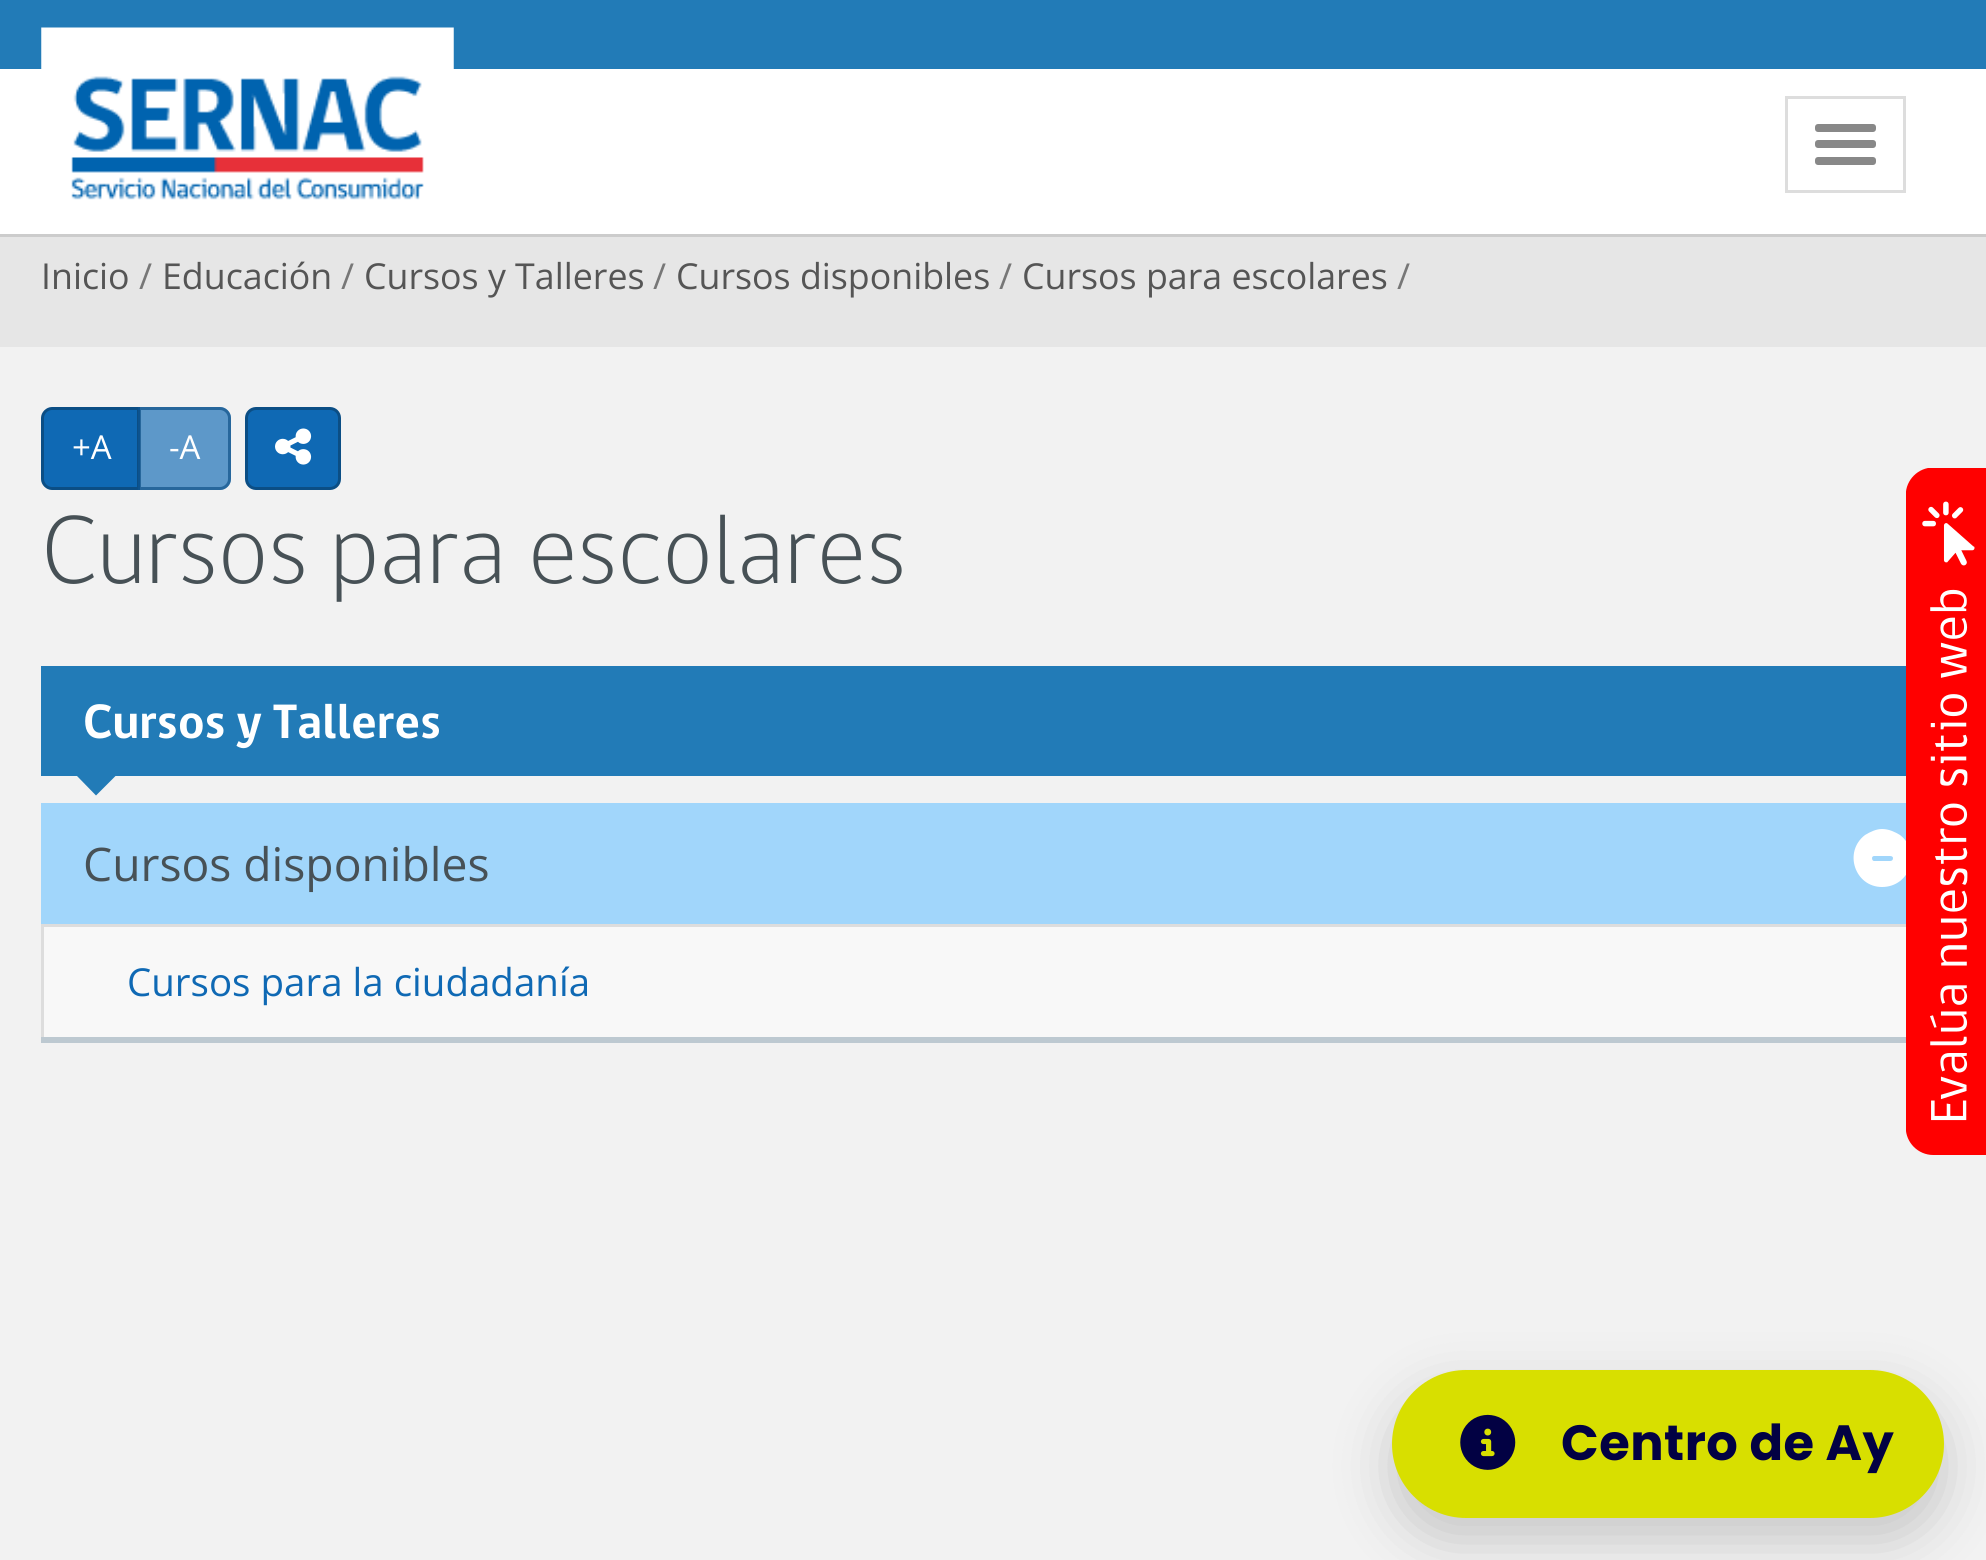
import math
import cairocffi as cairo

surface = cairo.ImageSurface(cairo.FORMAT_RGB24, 1986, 1560)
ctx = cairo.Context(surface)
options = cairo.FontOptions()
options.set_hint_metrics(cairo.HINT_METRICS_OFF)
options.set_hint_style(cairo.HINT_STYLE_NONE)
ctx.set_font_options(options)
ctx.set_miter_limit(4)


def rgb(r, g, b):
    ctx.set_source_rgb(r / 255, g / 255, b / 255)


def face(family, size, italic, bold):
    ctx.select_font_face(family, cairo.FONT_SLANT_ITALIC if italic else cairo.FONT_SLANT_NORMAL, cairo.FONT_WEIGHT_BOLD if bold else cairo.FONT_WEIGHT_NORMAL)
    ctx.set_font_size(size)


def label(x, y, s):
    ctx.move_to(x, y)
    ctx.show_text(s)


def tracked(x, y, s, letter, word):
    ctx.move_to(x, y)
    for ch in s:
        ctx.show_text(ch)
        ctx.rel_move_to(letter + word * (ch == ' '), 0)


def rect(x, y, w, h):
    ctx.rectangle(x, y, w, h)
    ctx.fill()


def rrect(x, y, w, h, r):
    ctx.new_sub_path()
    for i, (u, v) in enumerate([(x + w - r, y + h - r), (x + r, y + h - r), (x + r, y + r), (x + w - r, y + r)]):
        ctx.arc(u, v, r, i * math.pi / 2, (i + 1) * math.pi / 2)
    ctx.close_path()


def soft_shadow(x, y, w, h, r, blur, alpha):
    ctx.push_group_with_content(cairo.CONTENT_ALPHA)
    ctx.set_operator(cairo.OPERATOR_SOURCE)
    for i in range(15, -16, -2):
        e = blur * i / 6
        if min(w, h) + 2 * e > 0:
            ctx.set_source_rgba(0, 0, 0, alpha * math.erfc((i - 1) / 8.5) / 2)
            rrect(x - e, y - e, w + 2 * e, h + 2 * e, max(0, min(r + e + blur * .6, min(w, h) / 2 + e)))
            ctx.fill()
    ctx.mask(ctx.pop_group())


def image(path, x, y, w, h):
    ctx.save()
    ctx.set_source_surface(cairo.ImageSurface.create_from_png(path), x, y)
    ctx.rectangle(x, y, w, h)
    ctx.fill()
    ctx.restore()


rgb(242, 242, 242)
ctx.paint()
rgb(255, 255, 255)
rect(0, 69, 1986, 165)
rgb(34, 123, 183)
rect(0, 0, 1986, 69)
rgb(204, 204, 204)
rect(0, 234, 1986, 3)
image('image0.png', 41, 27, 413, 173)
ctx.rectangle(1786.5, 97.5, 118, 94)
rgb(221, 221, 221)
ctx.set_line_width(3)
ctx.stroke()
rgb(136, 136, 136)
rrect(1815, 124, 61, 8, 3)
ctx.fill()
rrect(1815, 140, 61, 8, 3)
ctx.fill()
rrect(1815, 157, 61, 8, 3)
ctx.fill()
rgb(230, 230, 230)
rect(0, 237, 1986, 110)
face('Open Sans', 35.75, 0, 0)
rgb(85, 85, 85)
label(41, 289, 'Inicio')
rgb(119, 119, 119)
label(139, 289, '/')
rgb(85, 85, 85)
label(162, 289, 'Educación')
rgb(119, 119, 119)
label(341, 289, '/')
rgb(85, 85, 85)
label(364, 289, 'Cursos y Talleres')
rgb(119, 119, 119)
label(653, 289, '/')
rgb(85, 85, 85)
label(676, 289, 'Cursos disponibles')
rgb(119, 119, 119)
label(999, 289, '/')
rgb(85, 85, 85)
label(1022, 289, 'Cursos para escolares')
rgb(119, 119, 119)
label(1397, 289, '/')
rgb(15, 105, 180)
ctx.new_path()
ctx.move_to(52, 408.5)
ctx.line_to(138.5, 408.5)
ctx.line_to(138.5, 488.5)
ctx.line_to(52, 488.5)
ctx.curve_to(47, 488.5, 42.5, 484, 42.5, 479)
ctx.line_to(42.5, 418)
ctx.curve_to(42.5, 413, 47, 408.5, 52, 408.5)
ctx.close_path()
ctx.fill_preserve()
rgb(11, 78, 133)
ctx.stroke()
face('Open Sans', 33, 0, 0)
rgb(255, 255, 255)
label(72, 459, '+A')
ctx.set_source_rgba(0.059, 0.412, 0.706, 0.65)
ctx.new_path()
ctx.move_to(138, 407)
ctx.line_to(220, 407)
ctx.curve_to(226, 407, 231, 412, 231, 418)
ctx.line_to(231, 479)
ctx.curve_to(231, 485, 226, 490, 220, 490)
ctx.line_to(138, 490)
ctx.close_path()
ctx.fill()
ctx.new_path()
ctx.move_to(139.5, 408.5)
ctx.line_to(220, 408.5)
ctx.curve_to(225, 408.5, 229.5, 413, 229.5, 418)
ctx.line_to(229.5, 479)
ctx.curve_to(229.5, 484, 225, 488.5, 220, 488.5)
ctx.line_to(139.5, 488.5)
ctx.close_path()
ctx.set_source_rgba(0.043, 0.306, 0.522, 0.65)
ctx.stroke()
rgb(255, 255, 255)
label(169, 459, '-A')
rgb(15, 105, 180)
rrect(246.5, 408.5, 93, 80, 9.5)
ctx.fill_preserve()
rgb(11, 78, 133)
ctx.stroke()
image('image1.png', 275, 428, 37, 37)
face('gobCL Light', 99, 0, 0)
rgb(71, 81, 86)
label(41, 583, 'Cursos para escolares')
rgb(34, 123, 183)
rect(41, 666, 1865, 110)
face('gobCL', 49.5, 0, 1)
rgb(255, 255, 255)
label(83, 738, 'Cursos y Talleres')
rgb(34, 123, 183)
ctx.new_path()
ctx.move_to(96, 756.5)
ctx.line_to(115.5, 776)
ctx.line_to(96, 795.5)
ctx.line_to(77, 776)
ctx.close_path()
ctx.fill()
rgb(161, 214, 251)
rect(41, 803, 1865, 121)
rgb(189, 201, 209)
rect(41, 1037, 1865, 6)
face('Open Sans', 46.25, 0, 0)
rgb(71, 81, 86)
label(83, 881, 'Cursos disponibles')
rgb(255, 255, 255)
ctx.new_path()
ctx.move_to(1882, 887)
ctx.curve_to(1910, 887, 1922, 852, 1900, 835)
ctx.curve_to(1895, 832, 1889, 829, 1882, 829)
ctx.curve_to(1876, 829, 1870, 832, 1865, 835)
ctx.curve_to(1843, 852, 1855, 887, 1882, 887)
ctx.close_path()
ctx.move_to(1874, 856)
ctx.line_to(1890, 856)
ctx.curve_to(1892, 856, 1893, 857, 1893, 858)
ctx.curve_to(1893, 860, 1892, 861, 1890, 861)
ctx.line_to(1874, 861)
ctx.curve_to(1873, 861, 1872, 860, 1872, 858)
ctx.curve_to(1872, 857, 1873, 856, 1874, 856)
ctx.close_path()
ctx.fill()
rgb(248, 248, 248)
rect(44, 927, 1862, 110)
rgb(221, 221, 221)
rect(41, 924, 1865, 3)
rect(41, 924, 3, 113)
face('Open Sans', 38.5, 0, 0)
rgb(15, 105, 180)
label(127, 996, 'Cursos para la ciudadanía')
image('image2.png', 1906, 468, 80, 687)
rgb(0, 0, 0)
soft_shadow(1392, 1392, 552, 148, 74, 27.5, 0.18)
rgb(216, 223, 0)
rrect(1392, 1370, 552, 148, 74)
ctx.fill()
image('image3.png', 1460, 1414, 56, 56)
face('Poppins', 49.5, 0, 1)
rgb(2, 1, 67)
tracked(1561, 1460, 'Centro de Ay', 0.5, 0)
surface.write_to_png('render.png')
